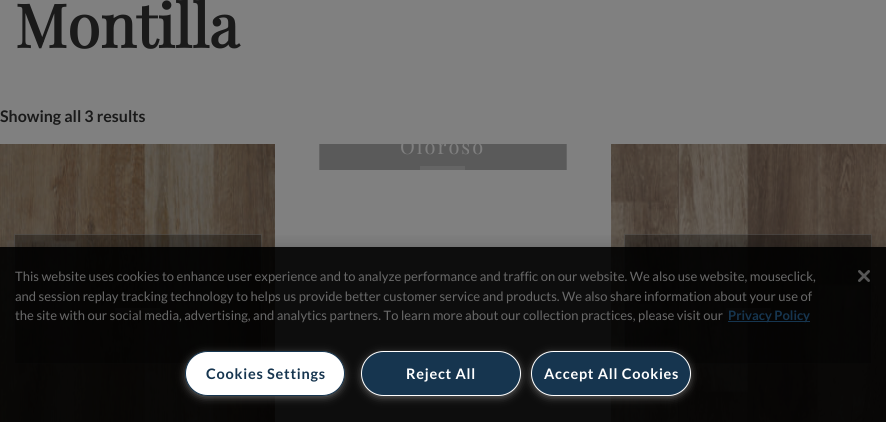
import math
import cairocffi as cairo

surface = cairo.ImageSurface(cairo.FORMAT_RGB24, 886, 422)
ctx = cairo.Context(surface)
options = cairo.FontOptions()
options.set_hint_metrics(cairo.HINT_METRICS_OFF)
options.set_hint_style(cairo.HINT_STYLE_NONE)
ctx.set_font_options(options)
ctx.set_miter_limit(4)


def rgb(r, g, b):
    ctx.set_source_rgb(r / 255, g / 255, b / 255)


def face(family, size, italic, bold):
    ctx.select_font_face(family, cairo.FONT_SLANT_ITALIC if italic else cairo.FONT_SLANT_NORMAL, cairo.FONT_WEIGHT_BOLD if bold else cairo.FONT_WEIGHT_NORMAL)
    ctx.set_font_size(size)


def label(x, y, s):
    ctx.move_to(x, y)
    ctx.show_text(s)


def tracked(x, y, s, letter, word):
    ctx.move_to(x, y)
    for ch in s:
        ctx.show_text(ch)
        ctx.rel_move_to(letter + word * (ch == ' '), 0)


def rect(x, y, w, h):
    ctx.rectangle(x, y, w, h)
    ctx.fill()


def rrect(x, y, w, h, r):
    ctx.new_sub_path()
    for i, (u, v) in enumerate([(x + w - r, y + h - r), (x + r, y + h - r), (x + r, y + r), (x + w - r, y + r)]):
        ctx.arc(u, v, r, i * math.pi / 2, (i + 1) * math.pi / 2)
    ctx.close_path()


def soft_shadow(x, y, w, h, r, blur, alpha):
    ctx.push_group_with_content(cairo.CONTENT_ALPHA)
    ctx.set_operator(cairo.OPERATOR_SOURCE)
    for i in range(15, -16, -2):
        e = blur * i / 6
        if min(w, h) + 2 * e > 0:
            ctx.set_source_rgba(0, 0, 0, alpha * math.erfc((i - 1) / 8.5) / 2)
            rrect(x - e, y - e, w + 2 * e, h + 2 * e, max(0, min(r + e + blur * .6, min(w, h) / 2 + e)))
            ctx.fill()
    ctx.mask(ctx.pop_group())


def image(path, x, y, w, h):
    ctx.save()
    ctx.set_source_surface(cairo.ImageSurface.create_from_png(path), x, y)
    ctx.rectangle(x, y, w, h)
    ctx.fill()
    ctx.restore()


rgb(128, 128, 128)
ctx.paint()
face('Playfair Display', 60, 0, 1)
rgb(26, 26, 26)
label(15, 48, 'Montilla')
face('Lato', 16, 0, 1)
label(0, 122, 'Showing all 3 results')
image('image0.png', 0, 144, 275, 278)
ctx.set_source_rgba(0, 0, 0, 0.3)
rect(14, 234, 248, 130)
ctx.rectangle(14.5, 234.5, 247, 129)
ctx.set_source_rgba(0.502, 0.502, 0.502, 0.3)
ctx.set_line_width(1)
ctx.stroke()
rect(115, 308, 45, 5)
rgb(90, 90, 90)
rect(320, 144, 246, 26)
ctx.save()
ctx.rectangle(305, 144, 276, 26)
ctx.clip()
ctx.rectangle(319.5, 92.5, 247, 129)
rgb(101, 101, 101)
ctx.stroke()
face('Playfair Display', 20, 0, 0)
rgb(128, 128, 128)
tracked(400, 154, 'Oloroso', 2, 0)
ctx.restore()
rgb(101, 101, 101)
rect(420, 166, 45, 4)
image('image1.png', 611, 144, 275, 278)
ctx.set_source_rgba(0, 0, 0, 0.3)
rect(624, 234, 248, 130)
ctx.rectangle(624.5, 234.5, 247, 129)
ctx.set_source_rgba(0.502, 0.502, 0.502, 0.3)
ctx.stroke()
rect(726, 308, 45, 5)
ctx.save()
ctx.rectangle(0, 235, 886, 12)
ctx.clip()
rgb(0, 0, 0)
soft_shadow(0, 247, 886, 175, 0, 9, 0.2)
ctx.restore()
ctx.set_source_rgba(0, 0, 0, 0.9)
rect(0, 247, 886, 175)
face('Lato', 13, 0, 0)
rgb(105, 105, 105)
label(15, 281, 'This website uses cookies to enhance user experience and to analyze performance and traffic on our website. We also use website, mouseclick,')
label(15, 301, 'and session replay tracking technology to helps us provide better customer service and products. We also share information about your use of')
label(15, 320, 'the site with our social media, advertising, and analytics partners. To learn more about our collection practices, please visit our')
rgb(22, 53, 79)
rect(728, 321, 82, 1)
face('Lato', 13, 0, 1)
label(728, 320, 'Privacy Policy')
rgb(153, 153, 153)
soft_shadow(188, 356, 154, 39, 19.5, 5, 1)
rgb(255, 255, 255)
rrect(185.5, 351.5, 159, 44, 22)
ctx.fill_preserve()
rgb(22, 53, 79)
ctx.stroke()
face('Lato', 14.5, 0, 1)
tracked(206, 379, 'Cookies Settings', 0.75, 0)
rgb(153, 153, 153)
soft_shadow(534, 356, 154, 39, 19.5, 5, 1)
rgb(22, 53, 79)
rrect(531.5, 351.5, 159, 44, 22)
ctx.fill_preserve()
rgb(255, 255, 255)
ctx.stroke()
rgb(153, 153, 153)
soft_shadow(364, 356, 154, 39, 19.5, 5, 1)
rgb(22, 53, 79)
rrect(361.5, 351.5, 159, 44, 22)
ctx.fill_preserve()
rgb(255, 255, 255)
ctx.stroke()
tracked(406, 379, 'Reject All', 0.75, 0)
tracked(544, 379, 'Accept All Cookies', 0.75, 0)
image('image2.png', 858, 270, 12, 12)
surface.write_to_png('render.png')
